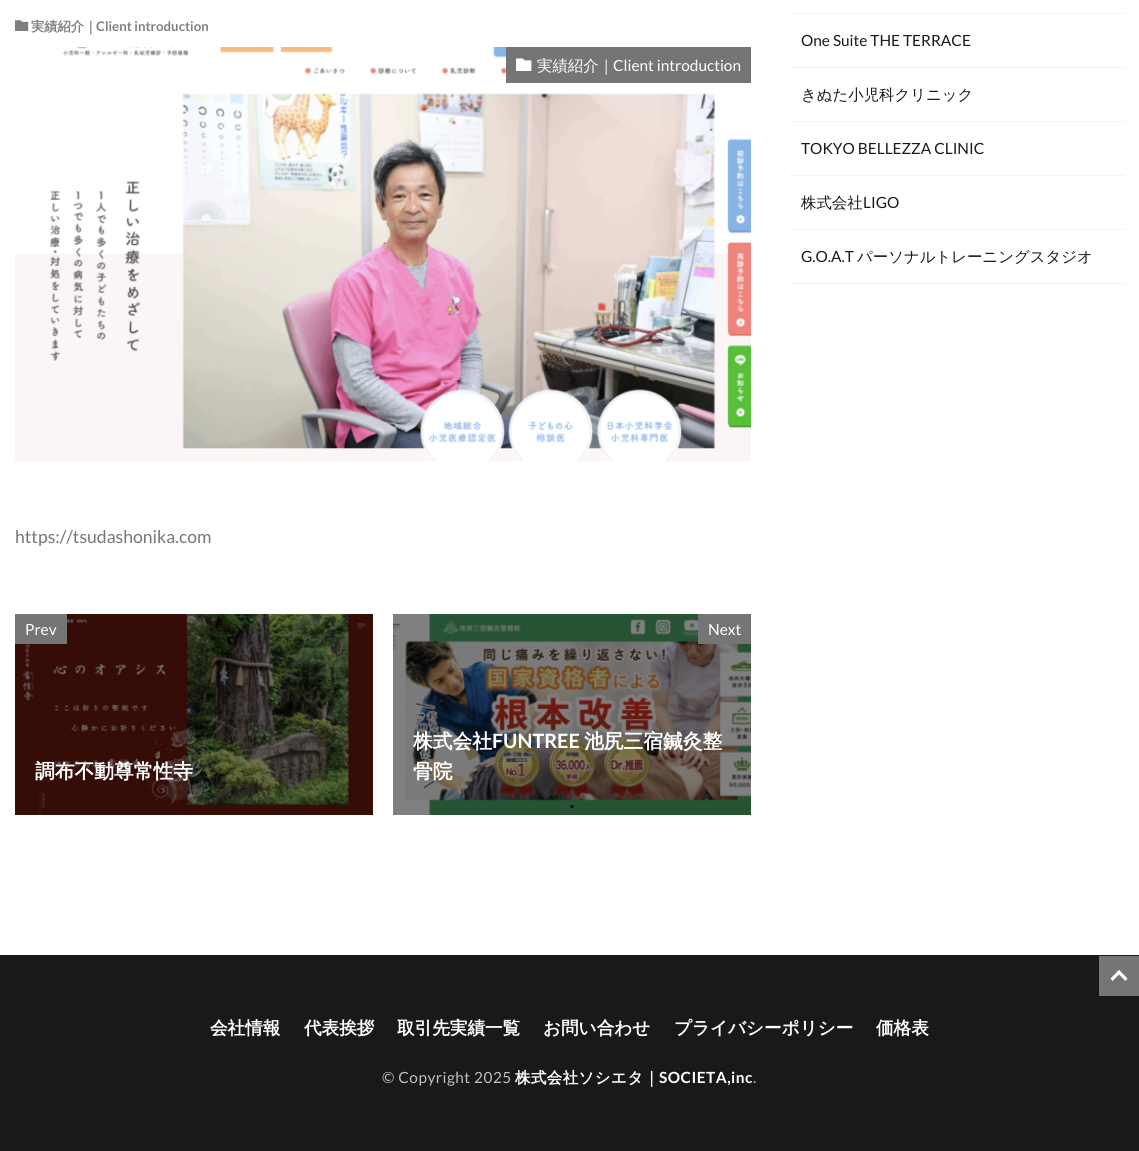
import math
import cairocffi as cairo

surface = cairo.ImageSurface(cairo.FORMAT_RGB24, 1139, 1151)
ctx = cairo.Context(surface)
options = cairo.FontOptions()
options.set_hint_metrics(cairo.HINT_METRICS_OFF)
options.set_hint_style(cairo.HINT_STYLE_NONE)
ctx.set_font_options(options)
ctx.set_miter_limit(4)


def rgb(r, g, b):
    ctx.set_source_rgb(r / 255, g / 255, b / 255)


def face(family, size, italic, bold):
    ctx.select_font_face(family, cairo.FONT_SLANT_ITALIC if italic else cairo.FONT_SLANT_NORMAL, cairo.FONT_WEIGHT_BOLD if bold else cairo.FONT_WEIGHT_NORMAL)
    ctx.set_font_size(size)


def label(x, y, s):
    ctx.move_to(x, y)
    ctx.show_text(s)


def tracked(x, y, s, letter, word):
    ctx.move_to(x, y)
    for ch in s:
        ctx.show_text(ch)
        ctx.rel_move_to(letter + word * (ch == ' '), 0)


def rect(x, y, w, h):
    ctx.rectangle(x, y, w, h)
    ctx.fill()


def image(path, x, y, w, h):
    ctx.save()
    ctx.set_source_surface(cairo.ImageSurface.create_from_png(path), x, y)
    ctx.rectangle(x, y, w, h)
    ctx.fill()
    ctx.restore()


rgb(255, 255, 255)
ctx.paint()
image('image0.png', 15, 20, 14, 11)
face('WenQuanYi Zen Hei', 13.25, 0, 1)
rgb(128, 128, 128)
label(31, 31, '実績紹介｜')
face('Lato', 13.25, 0, 1)
label(96, 31, 'Client introduction')
image('image1.png', 15, 47, 736, 414)
rgb(117, 117, 117)
rect(506, 47, 245, 36)
image('image2.png', 516, 58, 16, 13)
face('WenQuanYi Zen Hei Medium', 15.4, 0, 0)
rgb(255, 255, 255)
label(537, 71, '実績紹介｜')
face('Lato', 15.4, 0, 0)
label(613, 71, 'Client introduction')
face('Lato', 17.6, 0, 0)
rgb(117, 117, 117)
label(15, 543, 'https://tsudashonika.com')
image('image3.png', 15, 614, 358, 201)
rect(15, 614, 52, 30)
face('Lato', 15.4, 0, 0)
rgb(255, 255, 255)
label(25, 635, 'Prev')
face('WenQuanYi Zen Hei', 19.75, 0, 1)
label(35, 778, '調布不動尊常性寺')
image('image4.png', 393, 614, 358, 201)
rgb(117, 117, 117)
rect(698, 614, 53, 30)
face('Lato', 15.4, 0, 0)
rgb(255, 255, 255)
label(708, 635, 'Next')
face('WenQuanYi Zen Hei', 19.75, 0, 1)
label(413, 748, '株式会社')
face('Lato', 19.75, 0, 1)
label(492, 748, 'FUNTREE')
face('WenQuanYi Zen Hei', 19.75, 0, 1)
label(584, 748, '池尻三宿鍼灸整')
label(413, 778, '骨院')
ctx.new_path()
ctx.move_to(791, 13.5)
ctx.line_to(1124, 13.5)
rgb(230, 230, 230)
ctx.set_line_width(1)
ctx.set_dash([1, 1])
ctx.stroke()
ctx.new_path()
ctx.move_to(791, 67.5)
ctx.line_to(1124, 67.5)
ctx.stroke()
face('Lato', 15.4, 0, 0)
rgb(25, 25, 25)
label(801, 46, 'One Suite THE TERRACE')
ctx.new_path()
ctx.move_to(791, 121.5)
ctx.line_to(1124, 121.5)
rgb(230, 230, 230)
ctx.stroke()
face('WenQuanYi Zen Hei Medium', 15.4, 0, 0)
rgb(25, 25, 25)
label(801, 100, 'きぬた小児科クリニック')
ctx.new_path()
ctx.move_to(791, 175.5)
ctx.line_to(1124, 175.5)
rgb(230, 230, 230)
ctx.stroke()
face('Lato', 15.4, 0, 0)
rgb(25, 25, 25)
label(801, 154, 'TOKYO BELLEZZA CLINIC')
ctx.new_path()
ctx.move_to(791, 229.5)
ctx.line_to(1124, 229.5)
rgb(230, 230, 230)
ctx.stroke()
face('WenQuanYi Zen Hei Medium', 15.4, 0, 0)
rgb(25, 25, 25)
label(801, 208, '株式会社')
face('Lato', 15.4, 0, 0)
label(863, 208, 'LIGO')
ctx.new_path()
ctx.move_to(791, 283.5)
ctx.line_to(1124, 283.5)
rgb(230, 230, 230)
ctx.stroke()
rgb(25, 25, 25)
label(801, 262, 'G.O.A.T')
face('WenQuanYi Zen Hei Medium', 15.4, 0, 0)
label(857, 262, 'パーソナルトレーニングスタジオ')
rect(0, 955, 1139, 196)
rgb(117, 117, 117)
rect(1099, 956, 40, 40)
rgb(255, 255, 255)
ctx.new_path()
ctx.move_to(1110.5, 978.5)
ctx.line_to(1119, 970)
ctx.line_to(1121, 972.5)
ctx.line_to(1112.5, 981)
ctx.close_path()
ctx.fill()
ctx.new_path()
ctx.move_to(1117, 972.5)
ctx.line_to(1119, 970)
ctx.line_to(1127.5, 978.5)
ctx.line_to(1125.5, 981)
ctx.close_path()
ctx.fill()
face('WenQuanYi Zen Hei', 17.6, 0, 1)
label(210, 1034, '会社情報')
label(304, 1034, '代表挨拶')
label(397, 1034, '取引先実績一覧')
label(543, 1034, 'お問い合わせ')
label(674, 1034, 'プライバシーポリシー')
label(876, 1034, '価格表')
face('Lato', 15.4, 0, 0)
rgb(191, 191, 191)
tracked(382, 1083, '© Copyright 2025', 0.5, 0)
face('WenQuanYi Zen Hei', 15.4, 0, 1)
rgb(255, 255, 255)
tracked(515, 1083, '株式会社ソシエタ｜', 0.5, 0)
face('Lato', 15.4, 0, 1)
tracked(659, 1083, 'SOCIETA,inc', 0.5, 0)
face('Lato', 15.4, 0, 0)
rgb(191, 191, 191)
tracked(753, 1083, '.', 0.5, 0)
surface.write_to_png('render.png')
